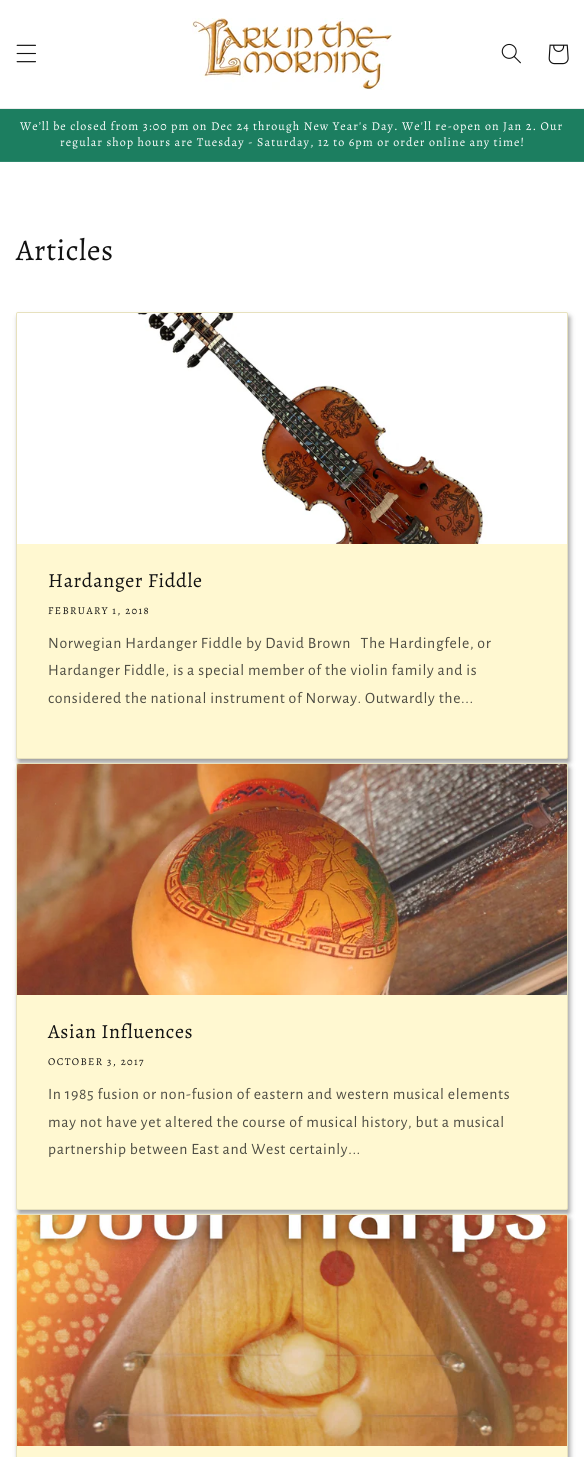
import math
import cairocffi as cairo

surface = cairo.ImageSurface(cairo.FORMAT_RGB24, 584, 1457)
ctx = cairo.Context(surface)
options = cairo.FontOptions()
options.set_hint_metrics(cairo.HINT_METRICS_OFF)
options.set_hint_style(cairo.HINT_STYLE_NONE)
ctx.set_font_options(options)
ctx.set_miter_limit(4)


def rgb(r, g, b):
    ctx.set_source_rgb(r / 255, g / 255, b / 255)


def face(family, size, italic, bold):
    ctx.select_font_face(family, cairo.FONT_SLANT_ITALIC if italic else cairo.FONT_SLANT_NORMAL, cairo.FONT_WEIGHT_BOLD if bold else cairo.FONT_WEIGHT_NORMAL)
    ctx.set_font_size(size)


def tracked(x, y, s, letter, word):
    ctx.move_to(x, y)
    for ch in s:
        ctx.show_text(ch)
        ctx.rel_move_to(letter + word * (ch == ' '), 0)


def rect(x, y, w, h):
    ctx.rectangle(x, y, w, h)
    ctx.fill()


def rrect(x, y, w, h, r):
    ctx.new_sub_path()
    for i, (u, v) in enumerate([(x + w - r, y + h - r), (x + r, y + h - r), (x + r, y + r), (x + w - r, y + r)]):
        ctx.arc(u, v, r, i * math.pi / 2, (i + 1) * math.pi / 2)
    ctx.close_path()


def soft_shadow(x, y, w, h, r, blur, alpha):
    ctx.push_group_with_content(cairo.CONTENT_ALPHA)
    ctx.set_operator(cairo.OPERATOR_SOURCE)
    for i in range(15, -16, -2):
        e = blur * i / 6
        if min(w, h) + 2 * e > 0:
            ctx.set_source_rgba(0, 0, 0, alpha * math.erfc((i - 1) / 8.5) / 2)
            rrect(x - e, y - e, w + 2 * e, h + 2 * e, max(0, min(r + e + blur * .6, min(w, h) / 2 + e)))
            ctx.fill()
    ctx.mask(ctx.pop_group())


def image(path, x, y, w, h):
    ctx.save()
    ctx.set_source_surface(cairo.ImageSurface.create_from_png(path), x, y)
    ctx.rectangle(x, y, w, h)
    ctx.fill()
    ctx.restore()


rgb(255, 255, 255)
ctx.paint()
rgb(236, 236, 236)
rect(0, 108, 584, 1)
image('image0.png', 16, 44, 20, 19)
image('image1.png', 192, 18, 200, 72)
image('image2.png', 501, 43, 20, 21)
image('image3.png', 548, 44, 21, 21)
rgb(28, 126, 96)
rect(0, 109, 584, 52)
rgb(46, 136, 109)
rect(0, 161, 584, 1)
face('Alegreya', 12, 0, 0)
rgb(255, 255, 255)
tracked(20, 130, 'We’ll be closed from 3:00 pm on Dec 24 through New Year\'s Day. We\'ll re-open on Jan 2. Our', 1.05, 0)
tracked(60, 146, 'regular shop hours are Tuesday - Saturday, 12 to 6pm or order online any time!', 1.05, 0)
face('Alegreya', 30, 0, 0)
rgb(18, 18, 18)
tracked(16, 260, 'Articles', 0.6, 0)
rgb(18, 18, 18)
soft_shadow(18, 316, 552, 447, 2, 2.5, 0.4)
soft_shadow(18, 767, 552, 447, 2, 2.5, 0.4)
rgb(255, 248, 209)
rrect(16, 312, 552, 447, 2)
ctx.fill()
rrect(16.5, 312.5, 551, 446, 1.5)
ctx.set_source_rgba(0.071, 0.071, 0.071, 0.1)
ctx.set_line_width(1)
ctx.stroke()
image('image4.png', 17, 313, 550, 231)
face('Alegreya', 20, 0, 0)
rgb(18, 18, 18)
tracked(48, 587, 'Hardanger Fiddle', 0.6, 0)
face('Alegreya', 10.5, 0, 0)
tracked(48, 614, 'FEBRUARY 1, 2018', 1.4, 0)
face('Alegreya Sans', 15.75, 0, 0)
rgb(77, 76, 66)
tracked(48, 648, 'Norwegian Hardanger Fiddle by David Brown   The Hardingfele, or', 0.63, 0)
tracked(48, 675, 'Hardanger Fiddle, is a special member of the violin family and is', 0.63, 0)
tracked(48, 703, 'considered the national instrument of Norway. Outwardly the...', 0.63, 0)
rgb(18, 18, 18)
soft_shadow(18, 1218, 552, 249, 2, 2.5, 0.4)
rgb(255, 248, 209)
rrect(16, 763, 552, 447, 2)
ctx.fill()
rrect(16.5, 763.5, 551, 446, 1.5)
ctx.set_source_rgba(0.071, 0.071, 0.071, 0.1)
ctx.stroke()
image('image5.png', 17, 764, 550, 231)
face('Alegreya', 20, 0, 0)
rgb(18, 18, 18)
tracked(48, 1038, 'Asian Influences', 0.6, 0)
face('Alegreya', 10.5, 0, 0)
tracked(48, 1065, 'OCTOBER 3, 2017', 1.4, 0)
face('Alegreya Sans', 15.75, 0, 0)
rgb(77, 76, 66)
tracked(48, 1099, 'In 1985 fusion or non-fusion of eastern and western musical elements', 0.63, 0)
tracked(48, 1127, 'may not have yet altered the course of musical history, but a musical', 0.63, 0)
tracked(48, 1154, 'partnership between East and West certainly...', 0.63, 0)
rgb(255, 248, 209)
rrect(16, 1214, 552, 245, 2)
ctx.fill()
rrect(16.5, 1214.5, 551, 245, 1.5)
ctx.set_source_rgba(0.071, 0.071, 0.071, 0.1)
ctx.stroke()
image('image6.png', 17, 1215, 550, 231)
surface.write_to_png('render.png')
